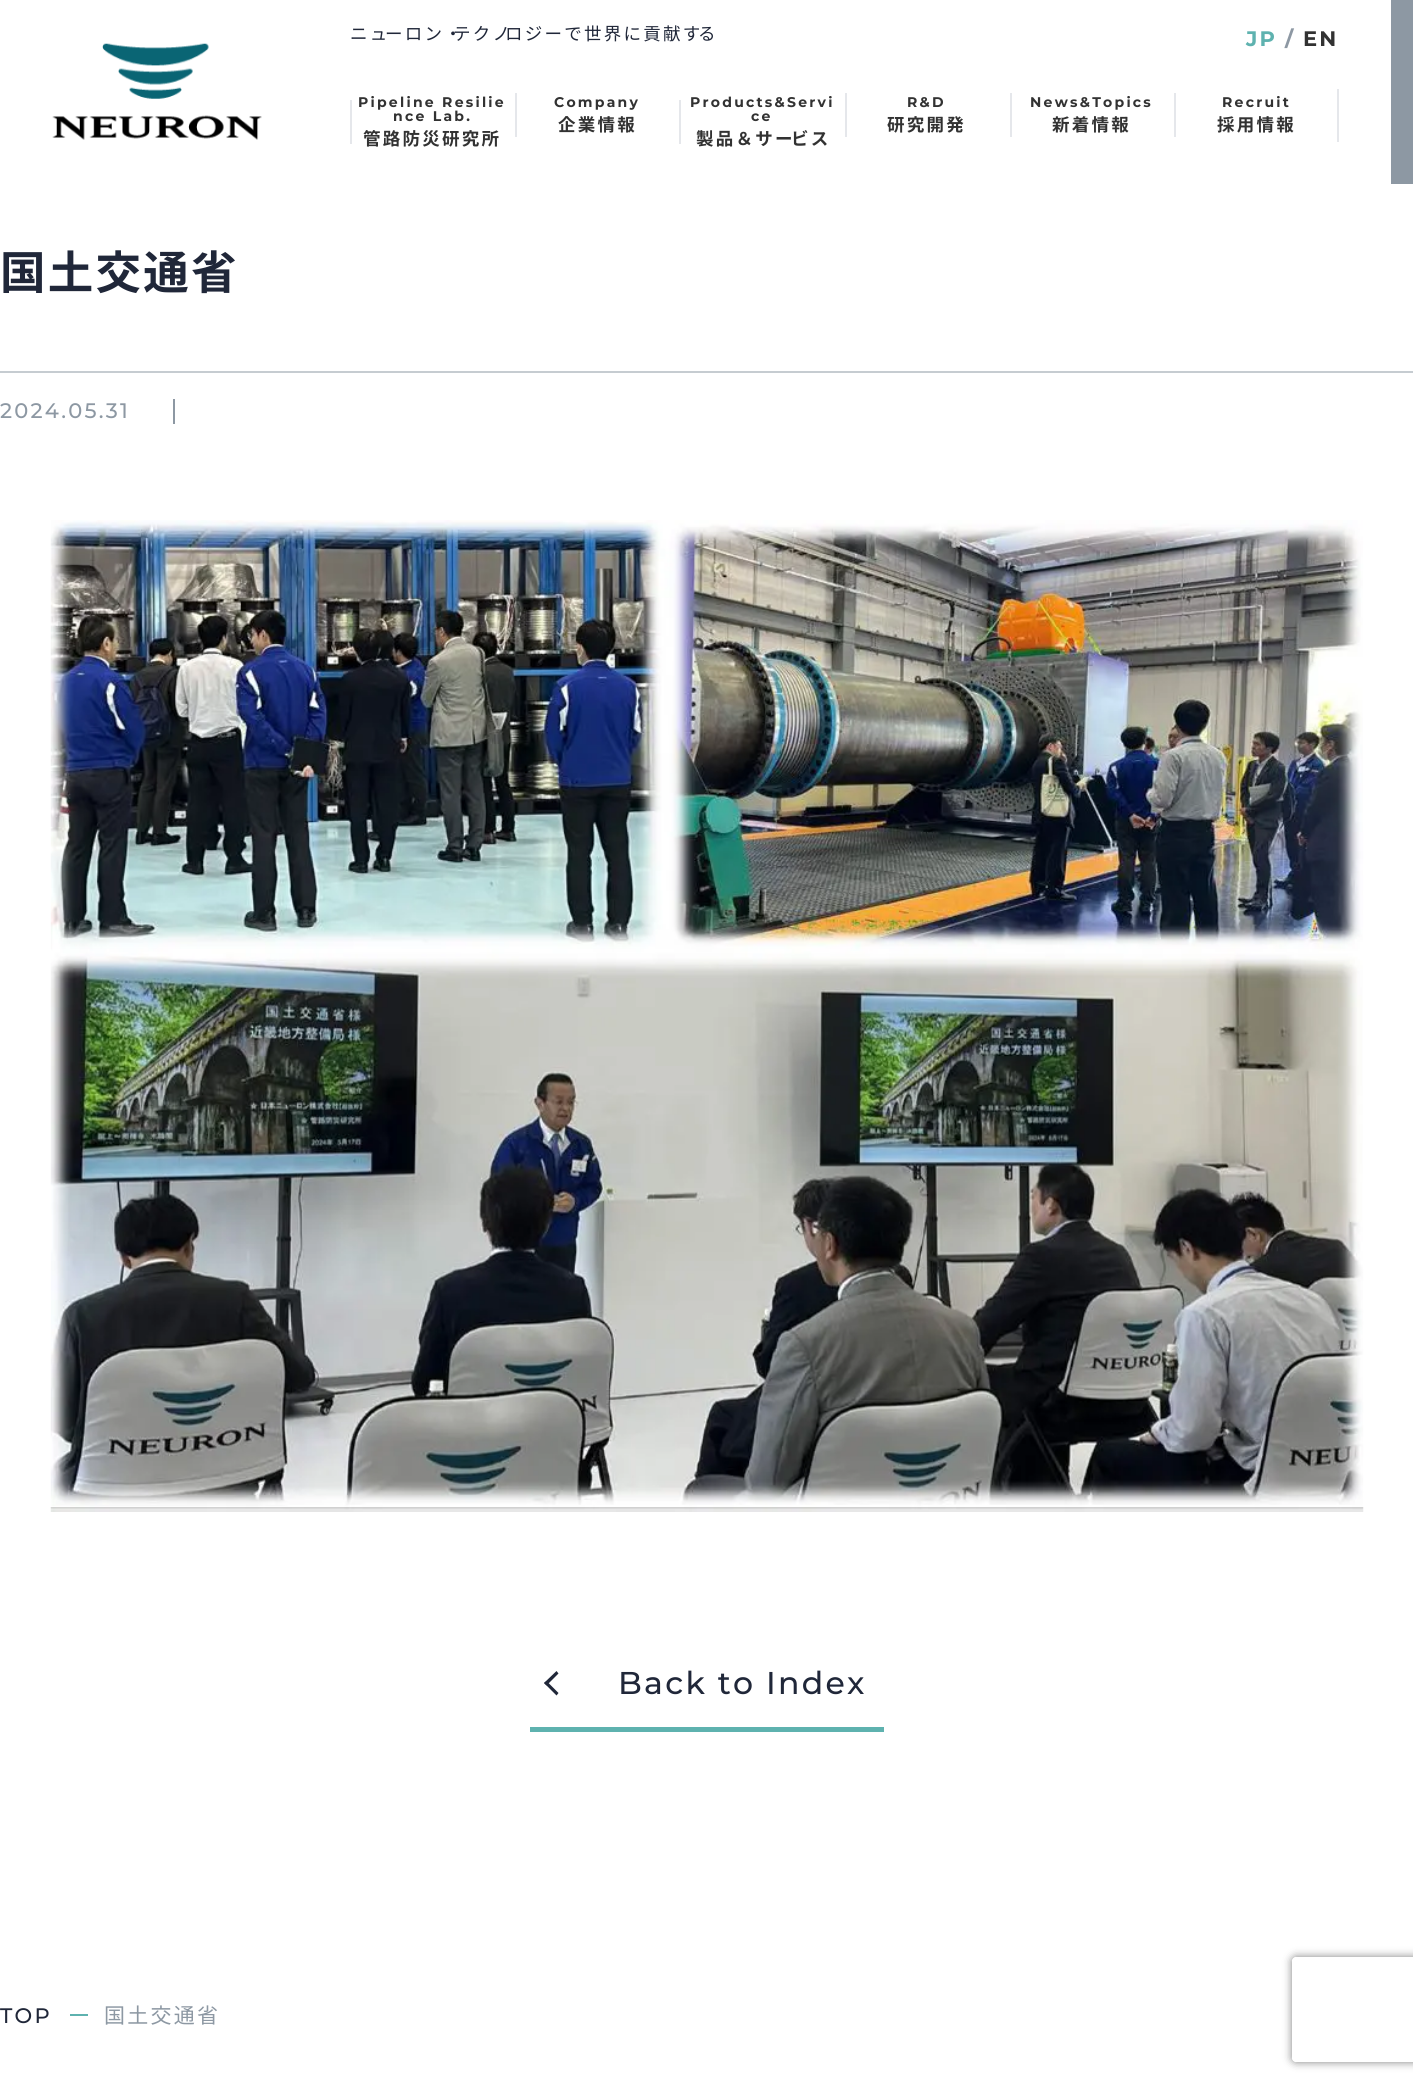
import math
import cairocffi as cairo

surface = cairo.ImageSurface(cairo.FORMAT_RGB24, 1413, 2085)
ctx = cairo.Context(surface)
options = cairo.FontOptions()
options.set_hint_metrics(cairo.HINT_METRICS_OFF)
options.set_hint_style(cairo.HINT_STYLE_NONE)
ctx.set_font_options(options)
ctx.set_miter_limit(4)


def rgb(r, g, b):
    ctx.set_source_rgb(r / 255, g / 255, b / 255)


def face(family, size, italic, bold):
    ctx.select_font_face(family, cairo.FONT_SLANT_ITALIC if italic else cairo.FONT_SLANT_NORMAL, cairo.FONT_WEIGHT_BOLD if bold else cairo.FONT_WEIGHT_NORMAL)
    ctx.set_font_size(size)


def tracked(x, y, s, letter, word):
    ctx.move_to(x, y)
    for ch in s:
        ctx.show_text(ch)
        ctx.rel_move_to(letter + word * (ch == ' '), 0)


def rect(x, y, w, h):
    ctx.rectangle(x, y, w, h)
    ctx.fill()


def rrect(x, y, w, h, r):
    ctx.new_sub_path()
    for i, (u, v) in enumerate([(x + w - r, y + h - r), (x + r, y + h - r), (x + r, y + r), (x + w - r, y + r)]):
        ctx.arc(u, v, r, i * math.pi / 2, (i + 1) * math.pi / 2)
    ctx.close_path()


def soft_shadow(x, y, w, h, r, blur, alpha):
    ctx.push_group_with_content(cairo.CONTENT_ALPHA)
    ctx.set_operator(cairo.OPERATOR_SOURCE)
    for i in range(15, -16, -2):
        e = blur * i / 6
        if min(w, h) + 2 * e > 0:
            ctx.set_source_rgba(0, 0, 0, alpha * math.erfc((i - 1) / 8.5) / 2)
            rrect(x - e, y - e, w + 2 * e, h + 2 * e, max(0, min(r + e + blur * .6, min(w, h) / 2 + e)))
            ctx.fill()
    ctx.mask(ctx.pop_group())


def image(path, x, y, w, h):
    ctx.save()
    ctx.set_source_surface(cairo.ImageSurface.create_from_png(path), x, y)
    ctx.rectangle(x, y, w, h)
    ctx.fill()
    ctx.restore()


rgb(255, 255, 255)
ctx.paint()
image('image0.png', 52, 43, 210, 97)
face('Noto Sans JP', 17.5, 0, 0)
rgb(32, 39, 57)
tracked(350, 40, 'ニュ', 2.25, 0)
tracked(385, 40, 'ーロン・', 2.25, 0)
tracked(453, 40, 'テクノ', 2.25, 0)
tracked(505, 40, 'ロジーで世界に貢献す', 2.25, 0)
tracked(698, 40, 'る', 2.25, 0)
face('Montserrat', 21, 0, 1)
rgb(94, 178, 175)
tracked(1246, 46, 'JP', 2.25, 0)
rgb(141, 152, 163)
tracked(1285, 46, '/', 2.25, 0)
rgb(50, 50, 50)
tracked(1303, 46, 'EN', 2.25, 0)
rgb(229, 231, 235)
rect(350, 100, 2, 44)
face('Montserrat', 14, 0, 1)
rgb(50, 50, 50)
tracked(358, 107, 'Pipeline Resilie', 2.25, 0)
tracked(393, 121, 'nce Lab.', 2.25, 0)
face('Noto Sans JP', 17.5, 0, 1)
tracked(363, 145, '管路防災研究所', 2.25, 0)
rgb(229, 231, 235)
rect(515, 93, 2, 44)
face('Montserrat', 14, 0, 1)
rgb(50, 50, 50)
tracked(554, 107, 'Company', 2.25, 0)
face('Noto Sans JP', 17.5, 0, 1)
tracked(558, 131, '企業情報', 2.25, 0)
rgb(229, 231, 235)
rect(679, 100, 2, 44)
face('Montserrat', 14, 0, 1)
rgb(50, 50, 50)
tracked(690, 107, 'Products&Servi', 2.25, 0)
tracked(751, 121, 'ce', 2.25, 0)
face('Noto Sans JP', 17.5, 0, 1)
tracked(696, 145, '製品＆サー', 2.25, 0)
tracked(791, 145, 'ビス', 2.25, 0)
rgb(229, 231, 235)
rect(845, 93, 2, 44)
face('Montserrat', 14, 0, 1)
rgb(50, 50, 50)
tracked(907, 107, 'R&D', 2.25, 0)
face('Noto Sans JP', 17.5, 0, 1)
tracked(887, 131, '研究開発', 2.25, 0)
rgb(229, 231, 235)
rect(1010, 93, 2, 44)
face('Montserrat', 14, 0, 1)
rgb(50, 50, 50)
tracked(1030, 107, 'News&Topics', 2.25, 0)
face('Noto Sans JP', 17.5, 0, 1)
tracked(1052, 131, '新着情報', 2.25, 0)
rgb(229, 231, 235)
rect(1174, 93, 2, 44)
face('Montserrat', 14, 0, 1)
rgb(50, 50, 50)
tracked(1222, 107, 'Recruit', 2.25, 0)
face('Noto Sans JP', 17.5, 0, 1)
tracked(1217, 131, '採用情報', 2.25, 0)
rgb(229, 231, 235)
rect(1337, 89, 2, 53)
rgb(141, 152, 163)
rect(1391, 0, 22, 184)
rgb(198, 204, 209)
rect(0, 371, 1413, 2)
face('Noto Sans JP', 45.5, 0, 1)
rgb(32, 39, 57)
tracked(0, 289, '国土交通省', 2.25, 0)
face('Montserrat Medium', 21, 0, 0)
rgb(141, 152, 163)
tracked(0, 418, '2024.05.31', 2.25, 0)
rect(173, 399, 2, 25)
image('image1.png', 50, 520, 1314, 992)
rgb(32, 39, 57)
ctx.new_path()
ctx.move_to(556.5, 1695.5)
ctx.line_to(544, 1683)
ctx.line_to(546.5, 1681)
ctx.line_to(558.5, 1693)
ctx.close_path()
ctx.fill()
ctx.new_path()
ctx.move_to(546.5, 1685.5)
ctx.line_to(544, 1683)
ctx.line_to(556.5, 1671)
ctx.line_to(558.5, 1673.5)
ctx.close_path()
ctx.fill()
face('Montserrat Medium', 31.5, 0, 0)
tracked(618, 1694, 'Back to Index', 2.25, 0)
rgb(94, 178, 175)
rect(530, 1727, 354, 5)
face('Montserrat Medium', 21, 0, 0)
rgb(32, 39, 57)
tracked(0, 2023, 'TOP', 2.25, 0)
rgb(94, 178, 175)
rect(70, 2014, 18, 2)
face('Noto Sans JP', 21, 0, 0)
rgb(141, 152, 163)
tracked(104, 2023, '国土交通省', 2.25, 0)
ctx.save()
ctx.set_fill_rule(cairo.FILL_RULE_EVEN_ODD)
ctx.new_path()
ctx.move_to(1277, 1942)
ctx.line_to(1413, 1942)
ctx.line_to(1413, 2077)
ctx.line_to(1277, 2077)
ctx.close_path()
ctx.move_to(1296, 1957)
ctx.line_to(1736, 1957)
ctx.curve_to(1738, 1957, 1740, 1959, 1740, 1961)
ctx.line_to(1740, 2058)
ctx.curve_to(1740, 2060, 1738, 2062, 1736, 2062)
ctx.line_to(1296, 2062)
ctx.curve_to(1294, 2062, 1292, 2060, 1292, 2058)
ctx.line_to(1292, 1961)
ctx.curve_to(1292, 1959, 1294, 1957, 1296, 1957)
ctx.close_path()
ctx.clip()
rgb(128, 128, 128)
soft_shadow(1292, 1957, 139, 105, 4, 4.5, 1)
ctx.restore()
surface.write_to_png('render.png')
